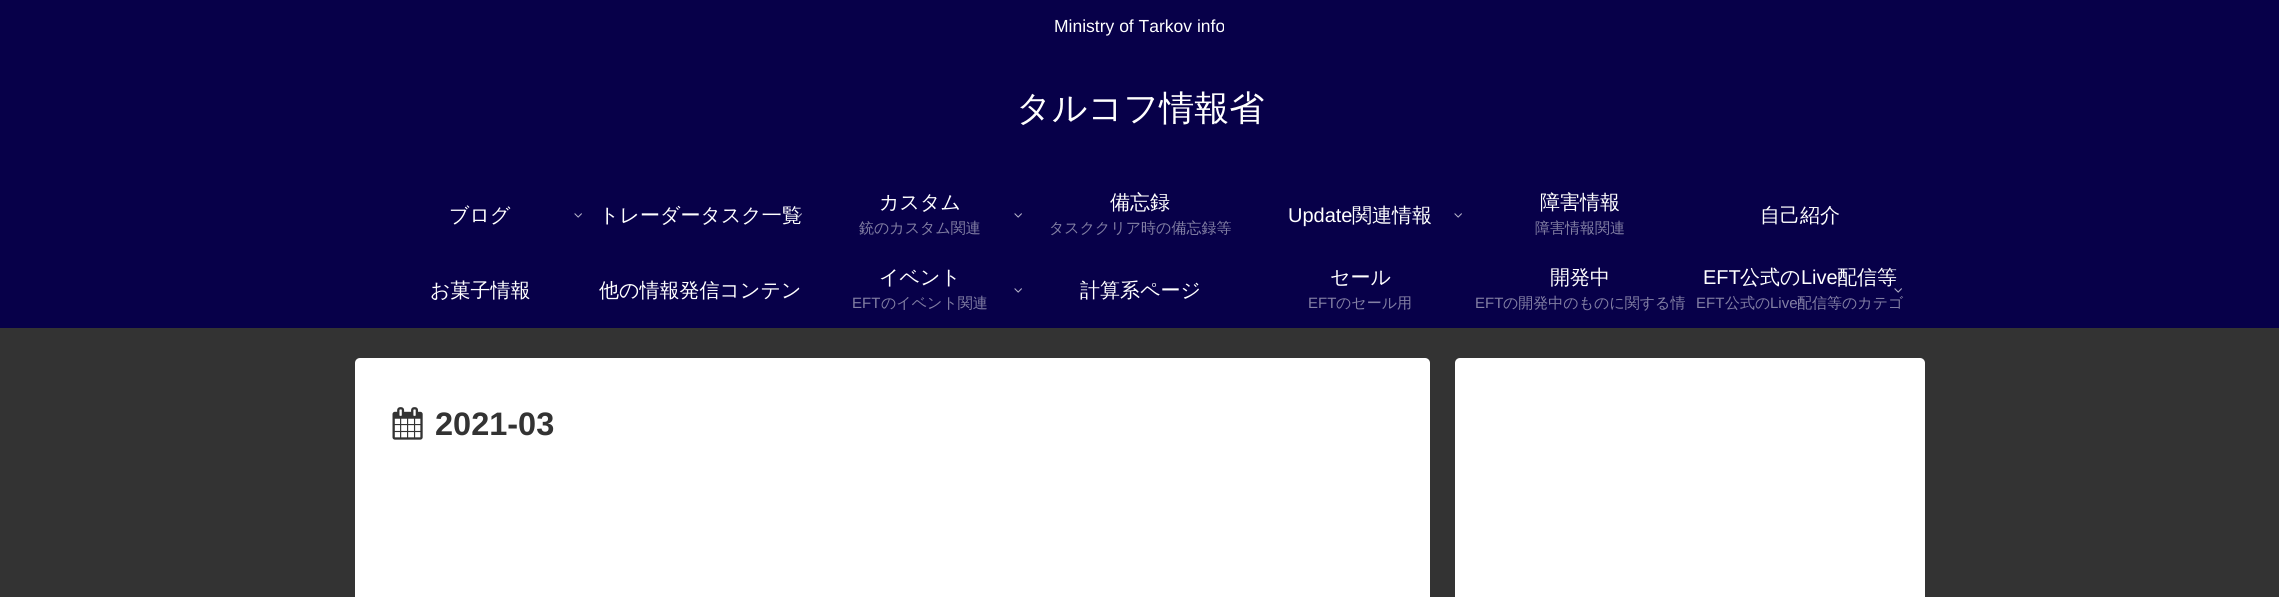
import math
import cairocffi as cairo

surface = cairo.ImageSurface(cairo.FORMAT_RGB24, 2279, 597)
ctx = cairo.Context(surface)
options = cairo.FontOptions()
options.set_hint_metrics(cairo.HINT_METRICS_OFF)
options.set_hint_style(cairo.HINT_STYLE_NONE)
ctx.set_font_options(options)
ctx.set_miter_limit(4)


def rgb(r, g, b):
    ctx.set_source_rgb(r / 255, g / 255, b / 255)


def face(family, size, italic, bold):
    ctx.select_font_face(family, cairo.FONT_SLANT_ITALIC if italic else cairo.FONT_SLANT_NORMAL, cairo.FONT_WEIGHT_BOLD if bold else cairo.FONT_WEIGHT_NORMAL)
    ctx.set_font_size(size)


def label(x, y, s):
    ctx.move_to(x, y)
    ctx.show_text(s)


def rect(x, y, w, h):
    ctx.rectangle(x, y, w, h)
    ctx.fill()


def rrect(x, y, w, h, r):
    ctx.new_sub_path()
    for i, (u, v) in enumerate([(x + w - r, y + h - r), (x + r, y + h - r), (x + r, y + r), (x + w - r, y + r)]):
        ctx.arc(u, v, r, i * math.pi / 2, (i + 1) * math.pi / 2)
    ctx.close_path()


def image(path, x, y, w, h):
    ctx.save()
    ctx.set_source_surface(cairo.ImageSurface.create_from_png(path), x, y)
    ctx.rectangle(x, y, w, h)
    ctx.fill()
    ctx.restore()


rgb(51, 51, 51)
ctx.paint()
rgb(7, 0, 73)
rect(0, 0, 2279, 328)
face('Liberation Sans', 17.5, 0, 0)
rgb(255, 255, 255)
label(1054, 32, 'Ministry of Tarkov info')
face('WenQuanYi Zen Hei Medium', 35, 0, 0)
label(1016, 120, 'タルコフ情報省')
face('WenQuanYi Zen Hei Medium', 20, 0, 0)
label(449, 222, 'ブログ')
image('image0.png', 574, 213, 8, 5)
label(599, 222, 'トレーダータスク一覧')
image('image1.png', 794, 213, 8, 5)
label(879, 209, 'カスタム')
face('WenQuanYi Zen Hei Medium', 15, 0, 0)
rgb(131, 128, 164)
label(859, 233, '銃のカスタム関連')
image('image0.png', 1014, 213, 8, 5)
face('WenQuanYi Zen Hei Medium', 20, 0, 0)
rgb(255, 255, 255)
label(1110, 209, '備忘録')
face('WenQuanYi Zen Hei Medium', 15, 0, 0)
rgb(131, 128, 164)
label(1049, 233, 'タスククリア時の備忘録等')
face('Liberation Sans', 20, 0, 0)
rgb(255, 255, 255)
label(1288, 222, 'Update')
face('WenQuanYi Zen Hei Medium', 20, 0, 0)
label(1352, 222, '関連情報')
image('image0.png', 1454, 213, 8, 5)
label(1540, 209, '障害情報')
face('WenQuanYi Zen Hei Medium', 15, 0, 0)
rgb(131, 128, 164)
label(1535, 233, '障害情報関連')
face('WenQuanYi Zen Hei Medium', 20, 0, 0)
rgb(255, 255, 255)
label(1760, 222, '自己紹介')
label(430, 297, 'お菓子情報')
label(599, 297, '他の情報発信コンテン')
label(879, 284, 'イベント')
face('Liberation Sans', 15, 0, 0)
rgb(131, 128, 164)
label(852, 308, 'EFT')
face('WenQuanYi Zen Hei Medium', 15, 0, 0)
label(881, 308, 'のイベント関連')
image('image0.png', 1014, 288, 8, 5)
face('WenQuanYi Zen Hei Medium', 20, 0, 0)
rgb(255, 255, 255)
label(1080, 297, '計算系ページ')
label(1330, 284, 'セール')
face('Liberation Sans', 15, 0, 0)
rgb(131, 128, 164)
label(1308, 308, 'EFT')
face('WenQuanYi Zen Hei Medium', 15, 0, 0)
label(1336, 308, 'のセール用')
face('WenQuanYi Zen Hei Medium', 20, 0, 0)
rgb(255, 255, 255)
label(1550, 284, '開発中')
face('Liberation Sans', 15, 0, 0)
rgb(131, 128, 164)
label(1475, 308, 'EFT')
face('WenQuanYi Zen Hei Medium', 15, 0, 0)
label(1503, 308, 'の開発中のものに関する情')
face('Liberation Sans', 20, 0, 0)
rgb(255, 255, 255)
label(1703, 284, 'EFT')
face('WenQuanYi Zen Hei Medium', 20, 0, 0)
label(1740, 284, '公式の')
face('Liberation Sans', 20, 0, 0)
label(1801, 284, 'Live')
face('WenQuanYi Zen Hei Medium', 20, 0, 0)
label(1837, 284, '配信等')
face('Liberation Sans', 15, 0, 0)
rgb(131, 128, 164)
label(1696, 308, 'EFT')
face('WenQuanYi Zen Hei Medium', 15, 0, 0)
label(1725, 308, '公式の')
face('Liberation Sans', 15, 0, 0)
label(1770, 308, 'Live')
face('WenQuanYi Zen Hei Medium', 15, 0, 0)
label(1797, 308, '配信等のカテゴ')
image('image0.png', 1894, 288, 8, 5)
rgb(255, 255, 255)
rrect(355, 358, 1075, 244, 5)
ctx.fill()
image('image2.png', 392, 407, 31, 33)
face('Liberation Sans', 32.5, 0, 1)
rgb(51, 51, 51)
label(435, 435, '2021-03')
rgb(255, 255, 255)
rrect(1455, 358, 470, 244, 5)
ctx.fill()
surface.write_to_png('render.png')
